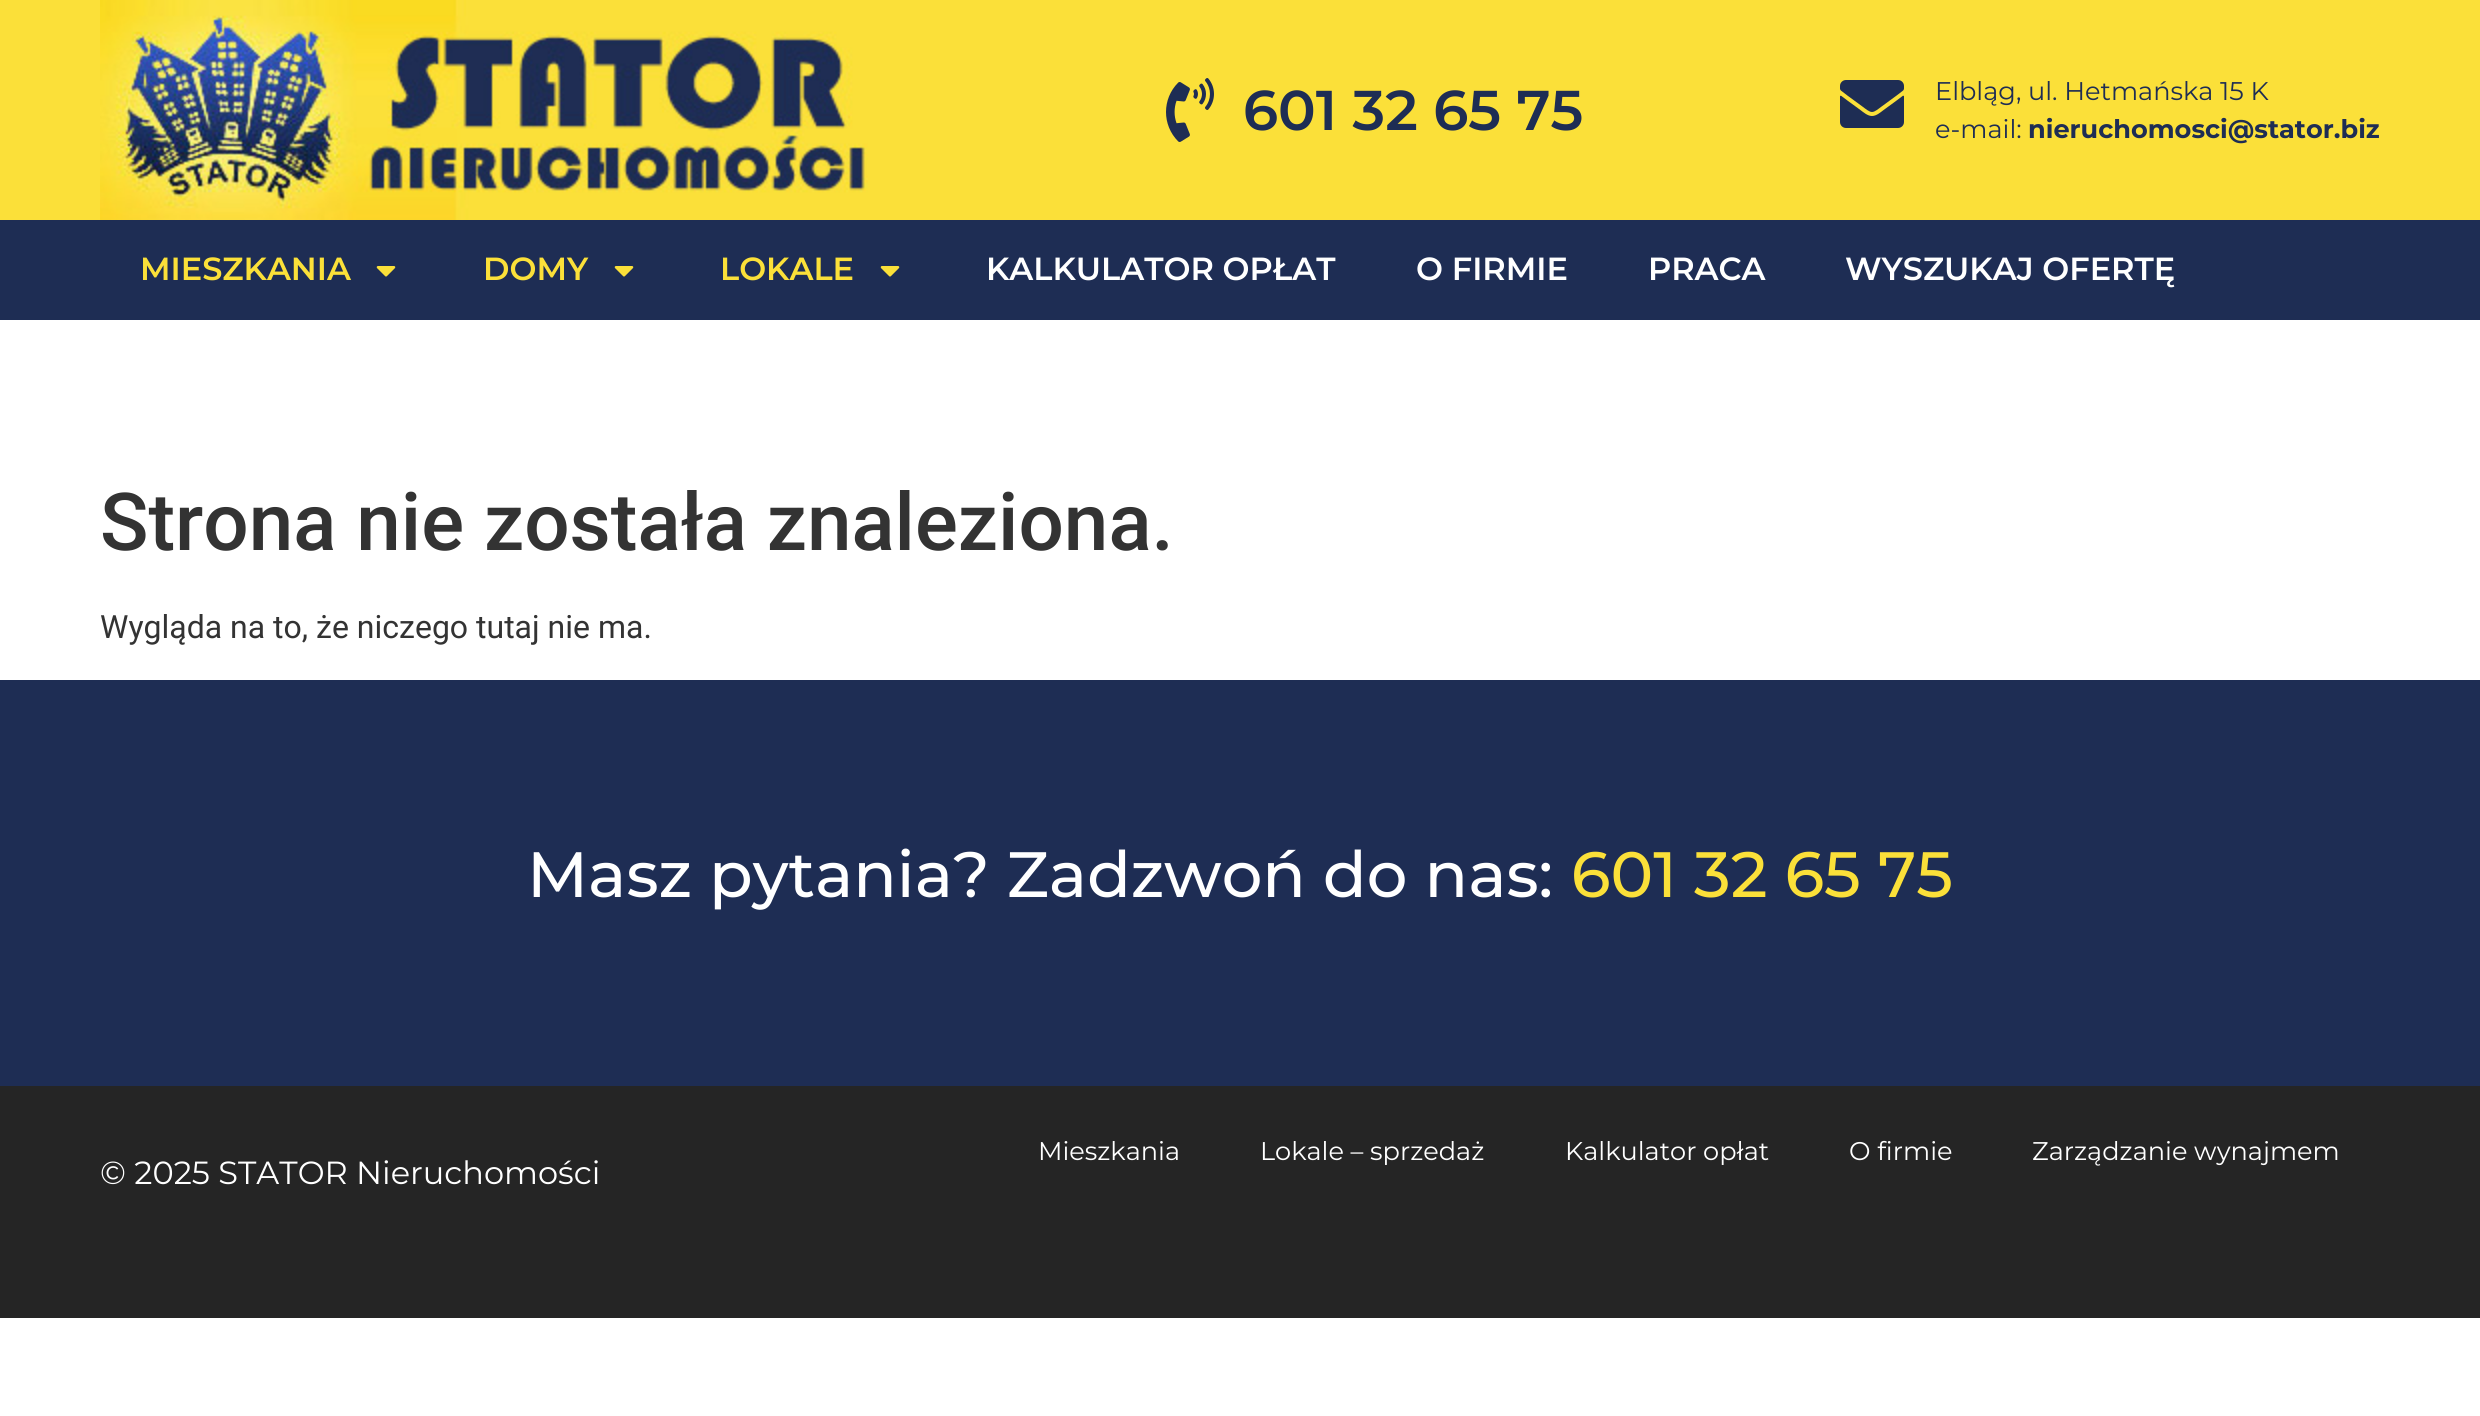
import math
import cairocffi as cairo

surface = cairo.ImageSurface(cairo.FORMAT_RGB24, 2480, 1416)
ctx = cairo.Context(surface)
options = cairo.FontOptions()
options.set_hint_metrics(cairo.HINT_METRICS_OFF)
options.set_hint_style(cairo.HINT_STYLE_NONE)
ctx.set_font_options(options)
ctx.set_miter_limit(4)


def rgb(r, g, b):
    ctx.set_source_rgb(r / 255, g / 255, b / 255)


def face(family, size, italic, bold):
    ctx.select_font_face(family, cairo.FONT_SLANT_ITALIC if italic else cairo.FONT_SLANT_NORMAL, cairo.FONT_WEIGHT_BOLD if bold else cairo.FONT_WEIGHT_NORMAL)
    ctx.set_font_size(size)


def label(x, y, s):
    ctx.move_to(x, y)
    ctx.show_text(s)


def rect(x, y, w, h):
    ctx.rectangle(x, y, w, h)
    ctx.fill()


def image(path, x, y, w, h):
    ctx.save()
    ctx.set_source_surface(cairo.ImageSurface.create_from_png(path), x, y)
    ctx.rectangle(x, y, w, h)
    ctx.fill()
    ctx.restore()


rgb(255, 255, 255)
ctx.paint()
rgb(251, 224, 57)
rect(0, 0, 2480, 220)
image('image0.png', 100, 0, 768, 220)
image('image1.png', 1166, 78, 48, 64)
face('Montserrat SemiBold', 56, 0, 0)
rgb(30, 45, 84)
label(1243, 130, '601 32 65 75')
image('image2.png', 1840, 80, 64, 48)
face('Montserrat', 25.6, 0, 0)
label(1935, 100, 'Elbląg, ul. Hetmańska 15 K')
label(1935, 138, 'e-mail:')
face('Montserrat', 25.6, 0, 1)
label(2028, 138, 'nieruchomosci@stator.biz')
rect(0, 220, 2480, 100)
face('Montserrat SemiBold', 32, 0, 0)
rgb(251, 224, 57)
label(140, 280, 'MIESZKANIA')
image('image3.png', 376, 266, 20, 11)
label(483, 280, 'DOMY')
image('image3.png', 614, 266, 20, 11)
label(720, 280, 'LOKALE')
image('image3.png', 880, 266, 20, 11)
rgb(255, 255, 255)
label(986, 280, 'KALKULATOR OPŁAT')
label(1416, 280, 'O FIRMIE')
label(1648, 280, 'PRACA')
label(1845, 280, 'WYSZUKAJ OFERTĘ')
face('Roboto Medium', 80, 0, 0)
rgb(51, 51, 51)
label(100, 550, 'Strona nie została znaleziona.')
face('Roboto', 32, 0, 0)
label(100, 638, 'Wygląda na to, że niczego tutaj nie ma.')
rgb(30, 45, 84)
rect(0, 680, 2480, 406)
face('Montserrat Medium', 64, 0, 0)
rgb(255, 255, 255)
label(527, 897, 'Masz pytania? Zadzwoń do nas:')
rgb(251, 224, 57)
label(1571, 897, '601 32 65 75')
rgb(37, 37, 37)
rect(0, 1086, 2480, 232)
face('Montserrat', 25.6, 0, 0)
rgb(255, 255, 255)
label(1038, 1160, 'Mieszkania')
label(1260, 1160, 'Lokale – sprzedaż')
label(1565, 1160, 'Kalkulator opłat')
label(1849, 1160, 'O firmie')
label(2032, 1160, 'Zarządzanie wynajmem')
face('Montserrat', 32, 0, 0)
label(100, 1184, '© 2025 STATOR Nieruchomości')
surface.write_to_png('render.png')
